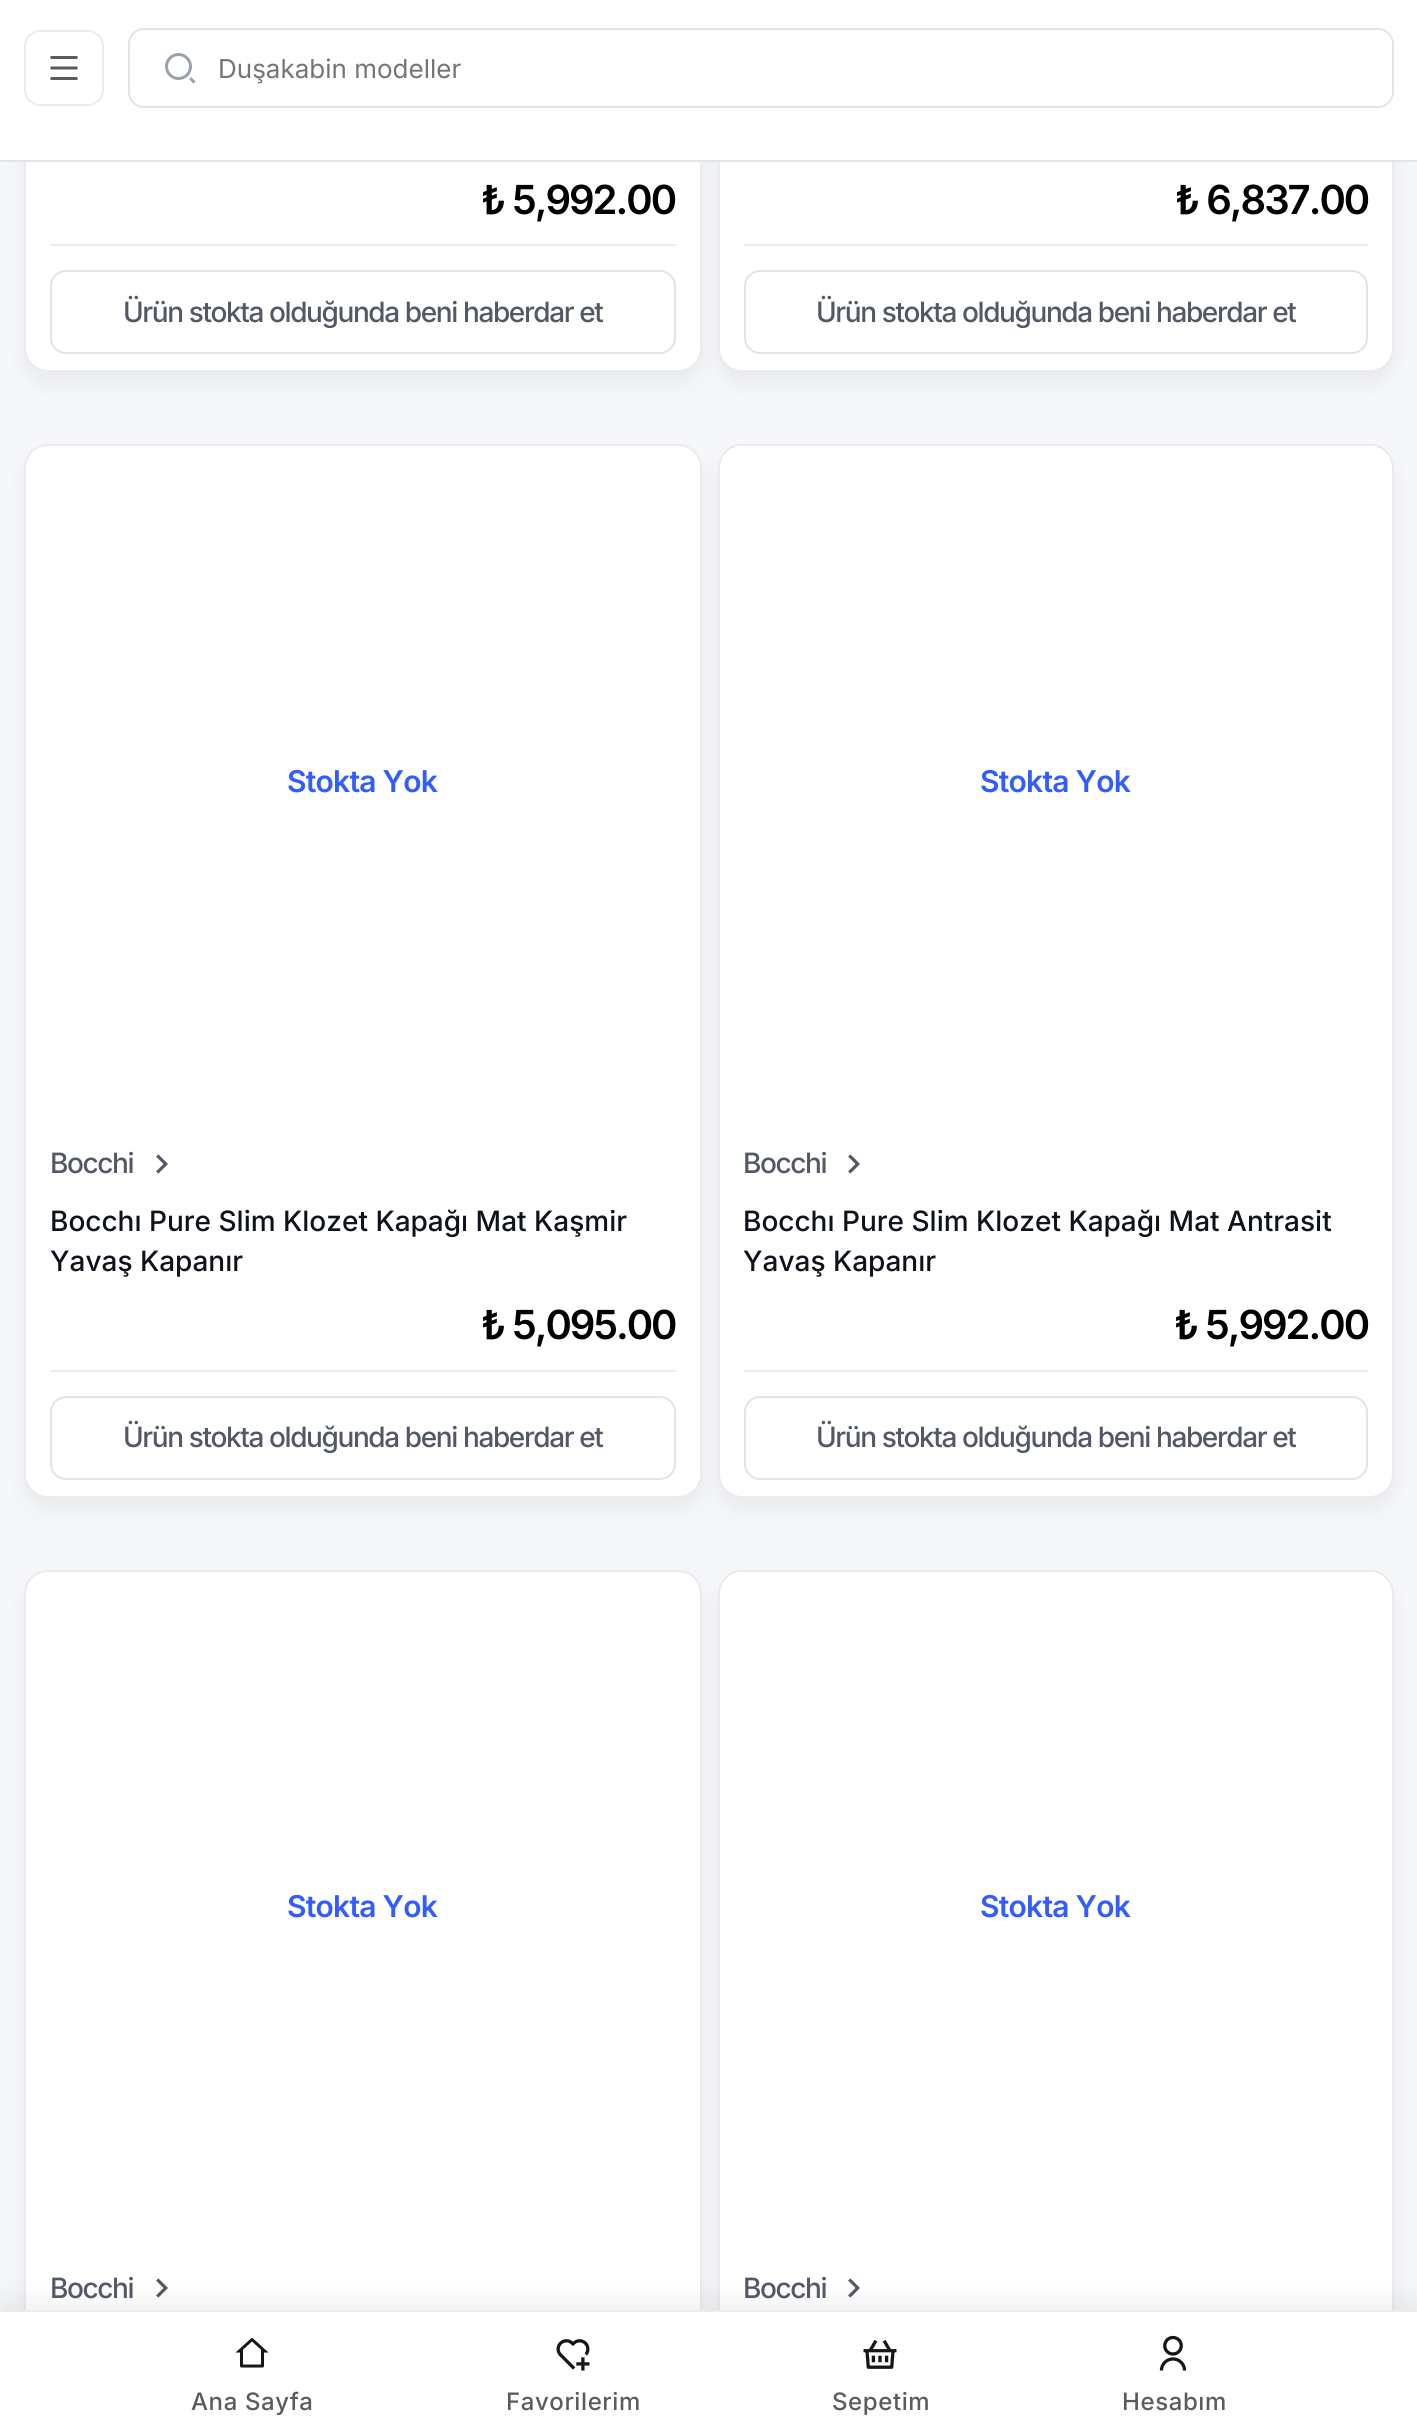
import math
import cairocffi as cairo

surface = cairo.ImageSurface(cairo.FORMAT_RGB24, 1417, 2428)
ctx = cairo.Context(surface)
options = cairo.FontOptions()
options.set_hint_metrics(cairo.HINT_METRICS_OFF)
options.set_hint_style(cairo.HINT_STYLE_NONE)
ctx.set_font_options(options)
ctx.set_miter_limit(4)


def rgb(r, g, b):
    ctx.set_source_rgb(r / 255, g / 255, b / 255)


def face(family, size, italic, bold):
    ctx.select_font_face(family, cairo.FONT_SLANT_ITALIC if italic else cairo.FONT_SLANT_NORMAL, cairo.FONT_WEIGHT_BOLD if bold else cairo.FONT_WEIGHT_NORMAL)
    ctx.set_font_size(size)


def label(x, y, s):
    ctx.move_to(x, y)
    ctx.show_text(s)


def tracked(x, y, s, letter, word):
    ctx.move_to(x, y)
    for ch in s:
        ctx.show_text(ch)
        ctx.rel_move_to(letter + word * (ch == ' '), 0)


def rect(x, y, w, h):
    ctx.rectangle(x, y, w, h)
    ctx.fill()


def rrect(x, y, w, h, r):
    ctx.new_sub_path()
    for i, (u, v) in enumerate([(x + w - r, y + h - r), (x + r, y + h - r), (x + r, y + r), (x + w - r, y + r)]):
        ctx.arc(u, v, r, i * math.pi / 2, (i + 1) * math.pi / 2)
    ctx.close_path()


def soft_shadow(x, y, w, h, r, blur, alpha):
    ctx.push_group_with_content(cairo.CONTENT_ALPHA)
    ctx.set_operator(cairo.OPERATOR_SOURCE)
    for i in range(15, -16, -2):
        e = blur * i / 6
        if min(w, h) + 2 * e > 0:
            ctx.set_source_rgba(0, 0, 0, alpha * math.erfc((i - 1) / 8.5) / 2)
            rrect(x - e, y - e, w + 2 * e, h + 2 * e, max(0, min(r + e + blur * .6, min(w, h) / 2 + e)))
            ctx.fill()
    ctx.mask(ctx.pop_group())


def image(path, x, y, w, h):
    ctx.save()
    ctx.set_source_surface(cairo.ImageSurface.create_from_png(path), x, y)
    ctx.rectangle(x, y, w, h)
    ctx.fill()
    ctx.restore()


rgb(245, 247, 250)
ctx.paint()
rgb(14, 18, 27)
soft_shadow(24, -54, 678, 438, 24, 10, 0.06)
rgb(255, 255, 255)
rrect(25, -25, 676, 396, 23)
ctx.fill_preserve()
rgb(235, 235, 235)
ctx.stroke()
rgb(14, 18, 27)
soft_shadow(718, -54, 676, 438, 24, 10, 0.06)
rgb(255, 255, 255)
rrect(719, -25, 674, 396, 23)
ctx.fill_preserve()
rgb(235, 235, 235)
ctx.stroke()
rgb(255, 255, 255)
rect(0, 0, 1417, 160)
rgb(225, 228, 234)
rect(0, 160, 1417, 2)
rrect(25, 31, 78, 74, 15)
rgb(235, 235, 235)
ctx.stroke()
image('image0.png', 50, 56, 28, 24)
rrect(129, 29, 1264, 78, 15)
rgb(225, 228, 234)
ctx.stroke()
image('image1.png', 165, 53, 31, 31)
face('Inter', 26, 0, 0)
rgb(117, 117, 117)
label(218, 78, 'Duşakabin modeller')
rgb(14, 18, 27)
soft_shadow(24, 1582, 678, 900, 24, 10, 0.06)
rgb(255, 255, 255)
rrect(25, 1571, 676, 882, 23)
ctx.fill_preserve()
rgb(235, 235, 235)
ctx.stroke()
rgb(82, 88, 102)
ctx.new_path()
ctx.move_to(163.5, 2288)
ctx.line_to(156, 2280.5)
ctx.line_to(158.5, 2278.5)
ctx.line_to(168, 2288)
ctx.line_to(158.5, 2297.5)
ctx.line_to(156, 2295.5)
ctx.close_path()
ctx.fill()
rgb(14, 18, 27)
soft_shadow(718, 1582, 676, 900, 24, 10, 0.06)
rgb(255, 255, 255)
rrect(719, 1571, 674, 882, 23)
ctx.fill_preserve()
rgb(235, 235, 235)
ctx.stroke()
rgb(82, 88, 102)
ctx.new_path()
ctx.move_to(855.5, 2288)
ctx.line_to(848, 2280.5)
ctx.line_to(850.5, 2278.5)
ctx.line_to(860, 2288)
ctx.line_to(850.5, 2297.5)
ctx.line_to(848, 2295.5)
ctx.close_path()
ctx.fill()
rgb(14, 18, 27)
soft_shadow(0, 2298, 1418, 118, 0, 12, 0.06)
rgb(255, 255, 255)
rect(0, 2312, 1417, 116)
rgb(235, 235, 235)
rect(0, 2310, 1417, 2)
image('image2.png', 235, 2338, 34, 30)
face('Inter Medium', 24, 0, 0)
rgb(92, 92, 92)
tracked(191, 2410, 'Ana Sayfa', 0.6, 0)
image('image3.png', 556, 2339, 34, 32)
tracked(506, 2410, 'Favorilerim', 0.6, 0)
image('image4.png', 863, 2340, 34, 29)
tracked(832, 2410, 'Sepetim', 0.6, 0)
image('image5.png', 1159, 2335, 28, 36)
tracked(1122, 2410, 'Hesabım', 0.6, 0)
rgb(235, 235, 235)
rect(50, 244, 626, 2)
face('Inter SemiBold', 40, 0, 0)
rgb(0, 0, 0)
tracked(481, 214, '₺ 5,992.00', -2, 0)
rrect(51, 271, 624, 82, 15)
rgb(225, 228, 234)
ctx.stroke()
face('Inter Medium', 28, 0, 0)
rgb(82, 88, 102)
tracked(123, 322, 'Ürün stokta olduğunda beni haberdar et', -1.4, 0)
rgb(235, 235, 235)
rect(744, 244, 624, 2)
face('Inter SemiBold', 40, 0, 0)
rgb(0, 0, 0)
tracked(1175, 214, '₺ 6,837.00', -2, 0)
rrect(745, 271, 622, 82, 15)
rgb(225, 228, 234)
ctx.stroke()
face('Inter Medium', 28, 0, 0)
rgb(82, 88, 102)
tracked(816, 322, 'Ürün stokta olduğunda beni haberdar et', -1.4, 0)
rgb(14, 18, 27)
soft_shadow(24, 456, 678, 1054, 24, 10, 0.06)
rgb(255, 255, 255)
rrect(25, 445, 676, 1052, 23)
ctx.fill_preserve()
rgb(235, 235, 235)
ctx.stroke()
face('Inter SemiBold', 30, 0, 0)
rgb(51, 92, 255)
tracked(287, 792, 'Stokta Yok', -0.75, 0)
face('Inter Medium', 28, 0, 0)
rgb(82, 88, 102)
tracked(50, 1173, 'Bocchi', -1.4, 0)
ctx.new_path()
ctx.move_to(163.5, 1164)
ctx.line_to(156, 1156.5)
ctx.line_to(158.5, 1154.5)
ctx.line_to(168, 1164)
ctx.line_to(158.5, 1173.5)
ctx.line_to(156, 1171.5)
ctx.close_path()
ctx.fill()
rgb(14, 18, 27)
label(50, 1231, 'Bocchı Pure Slim Klozet Kapağı Mat Kaşmir')
label(50, 1271, 'Yavaş Kapanır')
rgb(235, 235, 235)
rect(50, 1370, 626, 2)
face('Inter SemiBold', 40, 0, 0)
rgb(0, 0, 0)
tracked(481, 1339, '₺ 5,095.00', -2, 0)
rrect(51, 1397, 624, 82, 15)
rgb(225, 228, 234)
ctx.stroke()
face('Inter Medium', 28, 0, 0)
rgb(82, 88, 102)
tracked(123, 1447, 'Ürün stokta olduğunda beni haberdar et', -1.4, 0)
rgb(14, 18, 27)
soft_shadow(718, 456, 676, 1054, 24, 10, 0.06)
rgb(255, 255, 255)
rrect(719, 445, 674, 1052, 23)
ctx.fill_preserve()
rgb(235, 235, 235)
ctx.stroke()
face('Inter SemiBold', 30, 0, 0)
rgb(51, 92, 255)
tracked(980, 792, 'Stokta Yok', -0.75, 0)
face('Inter Medium', 28, 0, 0)
rgb(82, 88, 102)
tracked(743, 1173, 'Bocchi', -1.4, 0)
ctx.new_path()
ctx.move_to(855.5, 1164)
ctx.line_to(848, 1156.5)
ctx.line_to(850.5, 1154.5)
ctx.line_to(860, 1164)
ctx.line_to(850.5, 1173.5)
ctx.line_to(848, 1171.5)
ctx.close_path()
ctx.fill()
rgb(14, 18, 27)
label(743, 1231, 'Bocchı Pure Slim Klozet Kapağı Mat Antrasit')
label(743, 1271, 'Yavaş Kapanır')
rgb(235, 235, 235)
rect(744, 1370, 624, 2)
face('Inter SemiBold', 40, 0, 0)
rgb(0, 0, 0)
tracked(1174, 1339, '₺ 5,992.00', -2, 0)
rrect(745, 1397, 622, 82, 15)
rgb(225, 228, 234)
ctx.stroke()
face('Inter Medium', 28, 0, 0)
rgb(82, 88, 102)
tracked(816, 1447, 'Ürün stokta olduğunda beni haberdar et', -1.4, 0)
face('Inter SemiBold', 30, 0, 0)
rgb(51, 92, 255)
tracked(287, 1917, 'Stokta Yok', -0.75, 0)
face('Inter Medium', 28, 0, 0)
rgb(82, 88, 102)
tracked(50, 2298, 'Bocchi', -1.4, 0)
face('Inter SemiBold', 30, 0, 0)
rgb(51, 92, 255)
tracked(980, 1917, 'Stokta Yok', -0.75, 0)
face('Inter Medium', 28, 0, 0)
rgb(82, 88, 102)
tracked(743, 2298, 'Bocchi', -1.4, 0)
surface.write_to_png('render.png')
